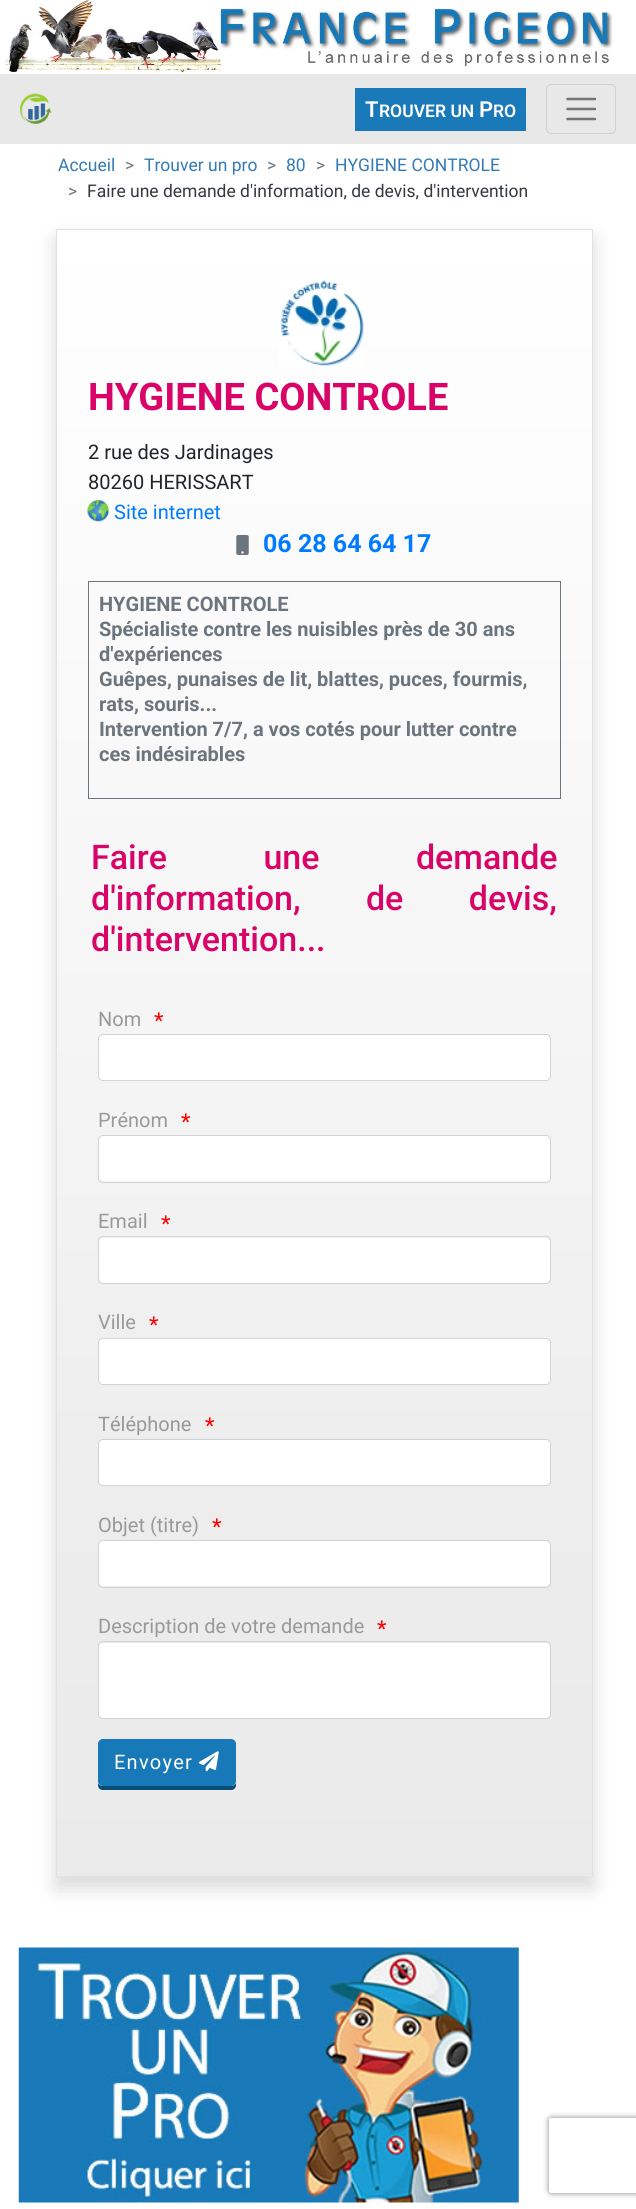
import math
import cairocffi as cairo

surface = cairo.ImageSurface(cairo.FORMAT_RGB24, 636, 2209)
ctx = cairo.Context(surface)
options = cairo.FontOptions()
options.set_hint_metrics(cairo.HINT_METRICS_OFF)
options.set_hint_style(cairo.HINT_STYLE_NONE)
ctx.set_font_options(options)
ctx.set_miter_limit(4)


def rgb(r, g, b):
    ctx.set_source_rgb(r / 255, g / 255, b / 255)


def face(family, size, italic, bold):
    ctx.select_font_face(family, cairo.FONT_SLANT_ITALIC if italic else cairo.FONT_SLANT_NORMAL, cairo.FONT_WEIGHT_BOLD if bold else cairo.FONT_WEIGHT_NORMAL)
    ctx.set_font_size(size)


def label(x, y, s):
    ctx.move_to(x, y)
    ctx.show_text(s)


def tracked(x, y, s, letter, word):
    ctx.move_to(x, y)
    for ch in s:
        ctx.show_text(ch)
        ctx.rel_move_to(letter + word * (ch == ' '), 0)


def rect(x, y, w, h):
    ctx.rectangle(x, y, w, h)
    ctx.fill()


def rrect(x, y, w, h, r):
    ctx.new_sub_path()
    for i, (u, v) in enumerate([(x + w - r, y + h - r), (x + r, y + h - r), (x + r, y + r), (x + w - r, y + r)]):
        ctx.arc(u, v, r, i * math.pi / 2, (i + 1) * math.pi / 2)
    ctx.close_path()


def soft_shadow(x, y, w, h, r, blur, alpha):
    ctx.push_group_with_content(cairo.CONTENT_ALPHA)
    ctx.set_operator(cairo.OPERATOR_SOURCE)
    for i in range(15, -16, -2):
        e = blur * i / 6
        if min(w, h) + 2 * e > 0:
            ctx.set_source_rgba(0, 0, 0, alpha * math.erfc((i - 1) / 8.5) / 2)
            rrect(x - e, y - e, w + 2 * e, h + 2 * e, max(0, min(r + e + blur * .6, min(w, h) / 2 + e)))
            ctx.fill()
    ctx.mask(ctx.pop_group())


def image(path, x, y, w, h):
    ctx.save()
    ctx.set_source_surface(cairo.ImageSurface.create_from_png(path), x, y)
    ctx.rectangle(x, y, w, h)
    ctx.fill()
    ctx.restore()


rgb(255, 255, 255)
ctx.paint()
image('image0.png', 4, 0, 609, 73)
rgb(232, 232, 232)
rect(0, 74, 636, 70)
image('image1.png', 20, 93, 32, 31)
rgb(26, 121, 185)
rect(355, 88, 171, 43)
face('Roboto SemiBold', 22, 0, 0)
rgb(255, 255, 255)
label(365, 117, 'T')
face('Roboto SemiBold', 17.5, 0, 0)
label(379, 117, 'ROUVER UN')
face('Roboto SemiBold', 22, 0, 0)
label(479, 117, 'P')
face('Roboto SemiBold', 17.5, 0, 0)
label(493, 117, 'RO')
rrect(546.5, 84.5, 69, 49, 4.5)
rgb(209, 209, 209)
ctx.set_line_width(1)
ctx.stroke()
ctx.new_path()
ctx.move_to(567.5, 99)
ctx.line_to(595, 99)
ctx.move_to(567.5, 109)
ctx.line_to(595, 109)
ctx.move_to(567.5, 119)
ctx.line_to(595, 119)
rgb(116, 116, 116)
ctx.set_line_width(2.5)
ctx.set_line_cap(cairo.LINE_CAP_ROUND)
ctx.stroke()
face('Roboto', 17.5, 0, 0)
rgb(51, 122, 183)
label(58, 171, 'Accueil')
rgb(108, 117, 125)
label(125, 171, '>')
rgb(51, 122, 183)
label(144, 171, 'Trouver un pro')
rgb(108, 117, 125)
label(267, 171, '>')
rgb(51, 122, 183)
label(286, 171, '80')
rgb(108, 117, 125)
label(316, 171, '>')
rgb(51, 122, 183)
label(335, 171, 'HYGIENE CONTROLE')
rgb(108, 117, 125)
label(68, 197, '>')
rgb(52, 58, 64)
label(87, 197, 'Faire une demande d\'information, de devis, d\'intervention')
rgb(0, 0, 0)
soft_shadow(56, 239, 537, 1649, 0, 10, 0.15)
gradient = cairo.LinearGradient(324, 230, 324, 1876)
gradient.add_color_stop_rgba(0, 1, 1, 1, 1)
gradient.add_color_stop_rgba(0.57, 0.953, 0.953, 0.953, 1)
gradient.add_color_stop_rgba(0.77, 0.929, 0.929, 0.929, 1)
gradient.add_color_stop_rgba(1, 0.918, 0.918, 0.918, 1)
ctx.set_source(gradient)
rect(57, 230, 535, 1646)
ctx.rectangle(56.5, 229.5, 536, 1648)
rgb(222, 226, 230)
ctx.set_line_width(1)
ctx.set_line_cap(cairo.LINE_CAP_BUTT)
ctx.stroke()
image('image2.png', 279, 280, 85, 87)
face('Roboto', 38, 0, 1)
rgb(216, 4, 103)
label(88, 410, 'HYGIENE CONTROLE')
face('Roboto', 20, 0, 0)
rgb(33, 37, 41)
label(88, 459, '2 rue des Jardinages')
label(88, 489, '80260 HERISSART')
image('image3.png', 87, 500, 22, 22)
rgb(0, 123, 255)
label(114, 519, 'Site internet')
image('image4.png', 236, 535, 13, 20)
face('Roboto', 25, 0, 1)
label(263, 552, '06 28 64 64 17')
ctx.rectangle(88.5, 581.5, 472, 217)
rgb(108, 117, 125)
ctx.stroke()
face('Roboto', 20, 0, 1)
label(99, 611, 'HYGIENE CONTROLE')
label(99, 636, 'Spécialiste contre les nuisibles près de 30 ans')
label(99, 661, 'd\'expériences')
label(99, 686, 'Guêpes, punaises de lit, blattes, puces, fourmis,')
label(99, 711, 'rats, souris...')
label(99, 736, 'Intervention 7/7, a vos cotés pour lutter contre')
label(99, 761, 'ces indésirables')
face('Roboto Medium', 34, 0, 0)
rgb(216, 4, 103)
tracked(91, 869, 'Faire une demande', 0, 88)
tracked(91, 910, 'd\'information, de devis,', 0, 57)
label(91, 951, 'd\'intervention...')
face('Roboto', 20, 0, 0)
rgb(153, 153, 153)
label(98, 1026, 'Nom')
face('Roboto', 22, 0, 0)
rgb(255, 0, 0)
label(154, 1028, '*')
rgb(255, 255, 255)
rrect(98.5, 1034.5, 452, 46, 4.5)
ctx.fill_preserve()
rgb(206, 212, 218)
ctx.stroke()
face('Roboto', 20, 0, 0)
rgb(153, 153, 153)
label(98, 1127, 'Prénom')
face('Roboto', 22, 0, 0)
rgb(255, 0, 0)
label(181, 1129, '*')
rgb(255, 255, 255)
rrect(99, 1136, 451, 45, 4)
ctx.fill()
rrect(98.5, 1135.5, 452, 47, 4.5)
rgb(206, 212, 218)
ctx.stroke()
face('Roboto', 20, 0, 0)
rgb(153, 153, 153)
label(98, 1228, 'Email')
face('Roboto', 22, 0, 0)
rgb(255, 0, 0)
label(161, 1231, '*')
rgb(255, 255, 255)
rrect(99, 1238, 451, 45, 4)
ctx.fill()
rrect(98.5, 1236.5, 452, 47, 4.5)
rgb(206, 212, 218)
ctx.stroke()
face('Roboto', 20, 0, 0)
rgb(153, 153, 153)
label(98, 1329, 'Ville')
face('Roboto', 22, 0, 0)
rgb(255, 0, 0)
label(149, 1332, '*')
rgb(255, 255, 255)
rrect(98.5, 1338.5, 452, 46, 4.5)
ctx.fill_preserve()
rgb(206, 212, 218)
ctx.stroke()
face('Roboto', 20, 0, 0)
rgb(153, 153, 153)
label(98, 1431, 'Téléphone')
face('Roboto', 22, 0, 0)
rgb(255, 0, 0)
label(205, 1433, '*')
rgb(255, 255, 255)
rrect(98.5, 1439.5, 452, 46, 4.5)
ctx.fill_preserve()
rgb(206, 212, 218)
ctx.stroke()
face('Roboto', 20, 0, 0)
rgb(153, 153, 153)
label(98, 1532, 'Objet (titre)')
face('Roboto', 22, 0, 0)
rgb(255, 0, 0)
label(212, 1534, '*')
rgb(255, 255, 255)
rrect(99, 1541, 451, 45, 4)
ctx.fill()
rrect(98.5, 1540.5, 452, 47, 4.5)
rgb(206, 212, 218)
ctx.stroke()
face('Roboto', 20, 0, 0)
rgb(153, 153, 153)
label(98, 1633, 'Description de votre demande')
face('Roboto', 22, 0, 0)
rgb(255, 0, 0)
label(377, 1636, '*')
rgb(255, 255, 255)
rrect(99, 1643, 451, 75, 4)
ctx.fill()
rrect(98.5, 1641.5, 452, 77, 4.5)
rgb(206, 212, 218)
ctx.stroke()
rgb(7, 77, 121)
ctx.new_path()
ctx.move_to(98, 1783)
ctx.line_to(98, 1785)
ctx.curve_to(98, 1788, 100, 1790, 103, 1790)
ctx.line_to(231, 1790)
ctx.curve_to(234, 1790, 236, 1788, 236, 1785)
ctx.line_to(236, 1783)
ctx.curve_to(235, 1785, 233, 1786, 231, 1786)
ctx.line_to(102, 1786)
ctx.curve_to(101, 1786, 99, 1785, 98, 1783)
ctx.close_path()
ctx.fill()
rgb(24, 121, 184)
rrect(98.5, 1739.5, 137, 46, 4.5)
ctx.fill_preserve()
ctx.stroke()
face('Roboto', 20, 0, 0)
rgb(255, 255, 255)
tracked(114, 1769, 'Envoyer', 1.25, 0)
image('image5.png', 198, 1751, 21, 21)
ctx.save()
ctx.set_fill_rule(cairo.FILL_RULE_EVEN_ODD)
ctx.new_path()
ctx.move_to(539, 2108)
ctx.line_to(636, 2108)
ctx.line_to(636, 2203)
ctx.line_to(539, 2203)
ctx.close_path()
ctx.move_to(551.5, 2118)
ctx.line_to(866.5, 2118)
ctx.curve_to(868, 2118, 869, 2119, 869, 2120.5)
ctx.line_to(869, 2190.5)
ctx.curve_to(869, 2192, 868, 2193, 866.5, 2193)
ctx.line_to(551.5, 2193)
ctx.curve_to(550, 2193, 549, 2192, 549, 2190.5)
ctx.line_to(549, 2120.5)
ctx.curve_to(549, 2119, 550, 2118, 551.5, 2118)
ctx.close_path()
ctx.clip()
rgb(128, 128, 128)
soft_shadow(549, 2118, 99, 75, 2.5, 3, 1)
ctx.restore()
image('image6.png', 18, 1947, 501, 256)
surface.write_to_png('render.png')
